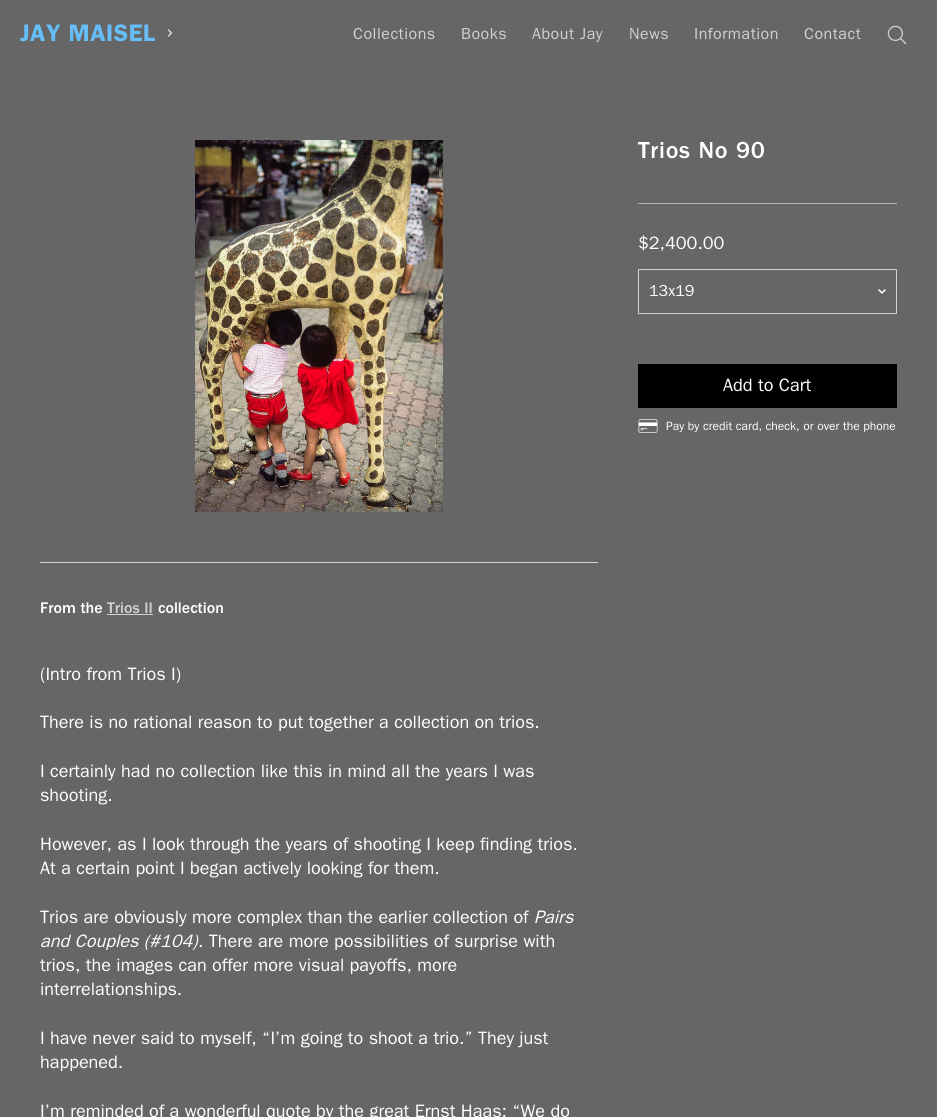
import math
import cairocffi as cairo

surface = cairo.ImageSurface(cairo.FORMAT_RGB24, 937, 1117)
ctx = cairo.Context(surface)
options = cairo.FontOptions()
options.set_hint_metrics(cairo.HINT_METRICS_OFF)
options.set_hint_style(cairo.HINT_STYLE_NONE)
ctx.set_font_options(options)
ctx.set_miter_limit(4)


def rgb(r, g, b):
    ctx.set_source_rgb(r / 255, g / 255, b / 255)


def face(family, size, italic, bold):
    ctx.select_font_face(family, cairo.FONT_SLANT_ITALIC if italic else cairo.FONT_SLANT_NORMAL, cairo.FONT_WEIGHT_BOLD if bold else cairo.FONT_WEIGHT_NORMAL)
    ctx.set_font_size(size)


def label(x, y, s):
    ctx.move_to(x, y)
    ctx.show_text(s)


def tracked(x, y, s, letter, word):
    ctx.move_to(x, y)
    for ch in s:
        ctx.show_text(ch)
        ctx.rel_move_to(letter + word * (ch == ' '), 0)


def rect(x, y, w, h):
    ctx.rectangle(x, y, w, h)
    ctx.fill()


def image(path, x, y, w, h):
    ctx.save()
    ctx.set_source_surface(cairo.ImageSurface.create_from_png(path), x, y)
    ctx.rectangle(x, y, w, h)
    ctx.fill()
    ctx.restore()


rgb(102, 102, 102)
ctx.paint()
face('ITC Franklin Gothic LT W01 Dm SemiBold', 24, 0, 0)
rgb(102, 190, 249)
tracked(20, 41, 'JAY MAISEL', 0.5, 0)
image('image0.png', 167, 29, 6, 8)
face('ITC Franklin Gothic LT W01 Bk', 16, 0, 0)
rgb(209, 209, 209)
tracked(353, 39, 'Collections', 0.5, 0)
tracked(461, 39, 'Books', 0.5, 0)
tracked(532, 39, 'About Jay', 0.5, 0)
tracked(629, 39, 'News', 0.5, 0)
tracked(694, 39, 'Information', 0.5, 0)
tracked(804, 39, 'Contact', 0.5, 0)
image('image1.png', 887, 25, 20, 20)
rgb(179, 179, 179)
rect(638, 203, 259, 1)
face('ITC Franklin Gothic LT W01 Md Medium', 24, 0, 0)
rgb(255, 255, 255)
tracked(638, 158, 'Trios No 90', 0.75, 0)
face('ITC Franklin Gothic LT W01 Bk', 18, 0, 0)
label(638, 249, '$2,400.00')
image('image2.png', 878, 289, 8, 5)
ctx.rectangle(638.5, 269.5, 258, 44)
rgb(209, 209, 209)
ctx.set_line_width(1)
ctx.stroke()
face('ITC Franklin Gothic LT W01 Bk', 16, 0, 0)
rgb(255, 255, 255)
label(649, 296, '13x19')
rgb(0, 0, 0)
rect(638, 364, 259, 44)
face('ITC Franklin Gothic LT W01 Bk', 18, 0, 0)
rgb(255, 255, 255)
label(723, 391, 'Add to Cart')
image('image3.png', 638, 419, 20, 14)
face('ITC Franklin Gothic LT W01 Bk', 12, 0, 0)
label(666, 430, 'Pay by credit card, check, or over the phone')
image('image4.png', 195, 140, 248, 372)
rgb(209, 209, 209)
rect(40, 562, 558, 1)
face('ITC Franklin Gothic LT W01 Md Medium', 16, 0, 0)
rgb(255, 255, 255)
label(40, 613, 'From the')
rgb(209, 209, 209)
label(107, 613, 'Trios II')
rect(107, 614, 46, 1)
rgb(255, 255, 255)
label(158, 613, 'collection')
face('ITC Franklin Gothic LT W01 Bk', 18, 0, 0)
label(40, 680, '(Intro from Trios I)')
label(40, 728, 'There is no rational reason to put together a collection on trios.')
label(40, 777, 'I certainly had no collection like this in mind all the years I was')
label(40, 801, 'shooting.')
label(40, 850, 'However, as I look through the years of shooting I keep finding trios.')
label(40, 874, 'At a certain point I began actively looking for them.')
label(40, 923, 'Trios are obviously more complex than the earlier collection of')
face('ITC Franklin Gothic LT W01 Bk', 18, 1, 0)
label(534, 923, 'Pairs')
label(40, 947, 'and Couples (#104)')
face('ITC Franklin Gothic LT W01 Bk', 18, 0, 0)
label(198, 947, '. There are more possibilities of surprise with')
label(40, 971, 'trios, the images can offer more visual payoffs, more')
label(40, 995, 'interrelationships.')
label(40, 1044, 'I have never said to myself, “I’m going to shoot a trio.” They just')
label(40, 1068, 'happened.')
label(40, 1117, 'I’m reminded of a wonderful quote by the great Ernst Haas: “We do')
surface.write_to_png('render.png')
